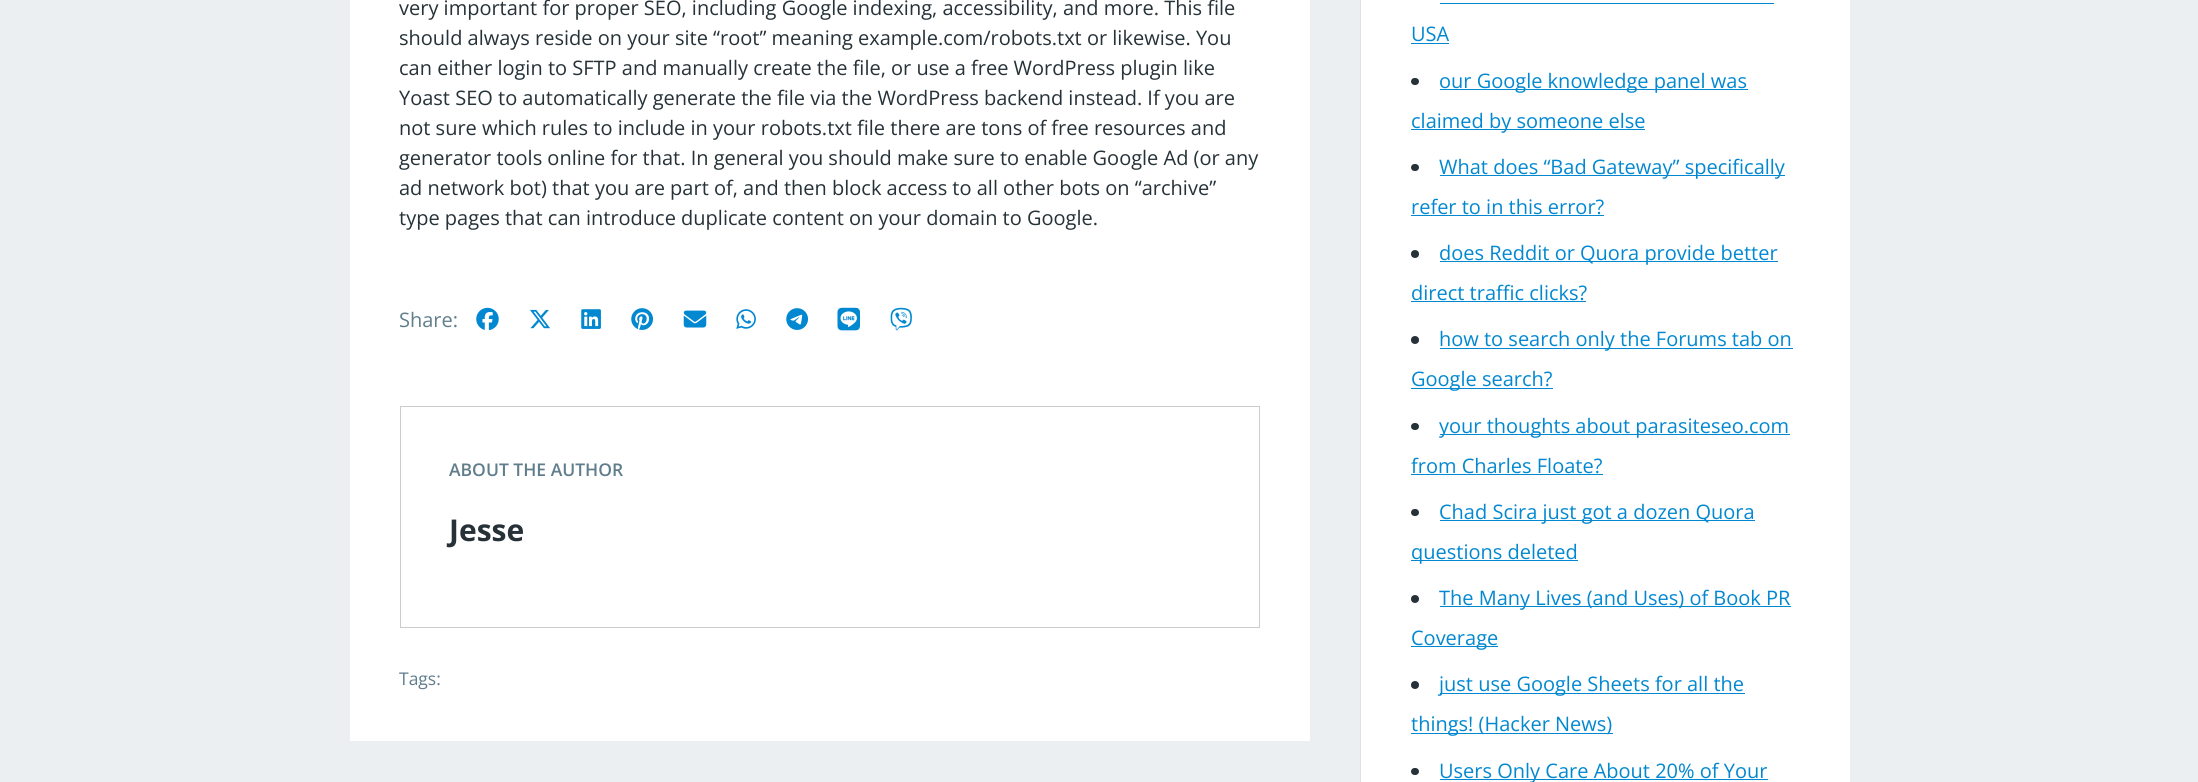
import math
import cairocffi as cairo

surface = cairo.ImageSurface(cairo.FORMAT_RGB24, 2198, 782)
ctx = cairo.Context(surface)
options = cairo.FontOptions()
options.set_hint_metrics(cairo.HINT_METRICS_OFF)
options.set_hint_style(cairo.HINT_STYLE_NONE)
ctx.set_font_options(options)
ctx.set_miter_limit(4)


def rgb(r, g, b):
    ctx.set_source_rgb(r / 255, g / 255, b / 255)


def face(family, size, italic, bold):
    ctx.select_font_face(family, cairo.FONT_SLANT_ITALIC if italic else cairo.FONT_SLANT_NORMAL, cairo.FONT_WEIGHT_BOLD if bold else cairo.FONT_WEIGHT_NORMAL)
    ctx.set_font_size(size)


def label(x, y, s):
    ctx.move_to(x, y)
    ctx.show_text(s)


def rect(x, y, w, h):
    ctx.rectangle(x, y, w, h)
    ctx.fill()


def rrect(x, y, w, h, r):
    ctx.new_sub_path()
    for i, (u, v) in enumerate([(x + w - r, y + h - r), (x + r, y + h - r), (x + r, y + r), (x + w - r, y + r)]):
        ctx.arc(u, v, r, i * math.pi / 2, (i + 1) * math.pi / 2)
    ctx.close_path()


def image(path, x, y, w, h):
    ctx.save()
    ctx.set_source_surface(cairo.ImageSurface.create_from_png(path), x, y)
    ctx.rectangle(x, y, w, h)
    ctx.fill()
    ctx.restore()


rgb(236, 239, 241)
ctx.paint()
rgb(255, 255, 255)
rect(350, 0, 960, 741)
face('Open Sans', 20, 0, 0)
rgb(38, 50, 56)
label(399, 15, 'very important for proper SEO, including Google indexing, accessibility, and more. This file')
label(399, 45, 'should always reside on your site “root” meaning example.com/robots.txt or likewise. You')
label(399, 75, 'can either login to SFTP and manually create the file, or use a free WordPress plugin like')
label(399, 105, 'Yoast SEO to automatically generate the file via the WordPress backend instead. If you are')
label(399, 135, 'not sure which rules to include in your robots.txt file there are tons of free resources and')
label(399, 165, 'generator tools online for that. In general you should make sure to enable Google Ad (or any')
label(399, 195, 'ad network bot) that you are part of, and then block access to all other bots on “archive”')
label(399, 225, 'type pages that can introduce duplicate content on your domain to Google.')
rgb(96, 125, 139)
label(399, 327, 'Share:')
image('image0.png', 476, 307, 23, 24)
image('image1.png', 530, 309, 20, 20)
image('image2.png', 581, 309, 20, 20)
image('image3.png', 631, 308, 22, 22)
image('image4.png', 683, 310, 24, 18)
image('image5.png', 736, 309, 20, 20)
image('image6.png', 786, 308, 22, 22)
image('image7.png', 837, 307, 23, 24)
image('image8.png', 890, 307, 22, 24)
ctx.rectangle(400.5, 406.5, 859, 221)
rgb(204, 204, 204)
ctx.set_line_width(1)
ctx.stroke()
face('Open Sans SemiBold', 17.5, 0, 0)
rgb(96, 125, 139)
label(449, 476, 'ABOUT THE AUTHOR')
face('Open Sans', 30, 0, 1)
rgb(38, 50, 56)
label(449, 541, 'Jesse')
face('Open Sans', 17.5, 0, 0)
rgb(96, 125, 139)
label(399, 685, 'Tags:')
rgb(224, 224, 224)
rect(1360, 0, 1, 782)
rgb(255, 255, 255)
rect(1361, 0, 489, 782)
face('Open Sans', 20, 0, 0)
rgb(2, 136, 209)
label(1411, 41, 'USA')
rect(1440, 3, 334, 1)
rect(1411, 43, 38, 1)
rgb(38, 50, 56)
rrect(1411, 78, 8, 7, 3.5)
ctx.fill()
rgb(2, 136, 209)
rect(1440, 89, 308, 1)
label(1439, 88, 'our Google knowledge panel was')
rect(1411, 129, 234, 1)
label(1411, 128, 'claimed by someone else')
rgb(38, 50, 56)
rrect(1411, 164, 8, 7, 3.5)
ctx.fill()
rgb(2, 136, 209)
rect(1440, 175, 345, 1)
label(1439, 174, 'What does “Bad Gateway” specifically')
label(1411, 214, 'refer to in this error?')
rect(1411, 215, 193, 1)
rgb(38, 50, 56)
ctx.new_path()
ctx.arc(1415, 254, 4, 0, 2 * math.pi)
ctx.fill()
rgb(2, 136, 209)
rect(1440, 261, 338, 1)
label(1439, 260, 'does Reddit or Quora provide better')
label(1411, 300, 'direct traffic clicks?')
rect(1411, 301, 175, 1)
rgb(38, 50, 56)
ctx.new_path()
ctx.arc(1415, 340, 4, 0, 2 * math.pi)
ctx.fill()
rgb(2, 136, 209)
rect(1440, 348, 353, 1)
label(1439, 346, 'how to search only the Forums tab on')
rect(1411, 388, 142, 1)
label(1411, 386, 'Google search?')
rgb(38, 50, 56)
rrect(1411, 423, 8, 7, 3.5)
ctx.fill()
rgb(2, 136, 209)
rect(1440, 434, 350, 1)
label(1439, 433, 'your thoughts about parasiteseo.com')
label(1411, 473, 'from Charles Floate?')
rect(1411, 474, 192, 1)
rgb(38, 50, 56)
rrect(1411, 509, 8, 7, 3.5)
ctx.fill()
rgb(2, 136, 209)
rect(1440, 520, 315, 1)
label(1439, 519, 'Chad Scira just got a dozen Quora')
rect(1411, 560, 167, 1)
label(1411, 559, 'questions deleted')
rgb(38, 50, 56)
ctx.new_path()
ctx.arc(1415, 599, 4, 0, 2 * math.pi)
ctx.fill()
rgb(2, 136, 209)
rect(1440, 606, 351, 1)
label(1439, 605, 'The Many Lives (and Uses) of Book PR')
rect(1411, 646, 87, 1)
label(1411, 645, 'Coverage')
rgb(38, 50, 56)
ctx.new_path()
ctx.arc(1415, 685, 4, 0, 2 * math.pi)
ctx.fill()
rgb(2, 136, 209)
rect(1440, 693, 305, 1)
label(1439, 691, 'just use Google Sheets for all the')
rect(1411, 733, 202, 1)
label(1411, 731, 'things! (Hacker News)')
rgb(38, 50, 56)
rrect(1411, 768, 8, 7, 3.5)
ctx.fill()
rgb(2, 136, 209)
rect(1440, 779, 328, 1)
label(1439, 778, 'Users Only Care About 20% of Your')
surface.write_to_png('render.png')
